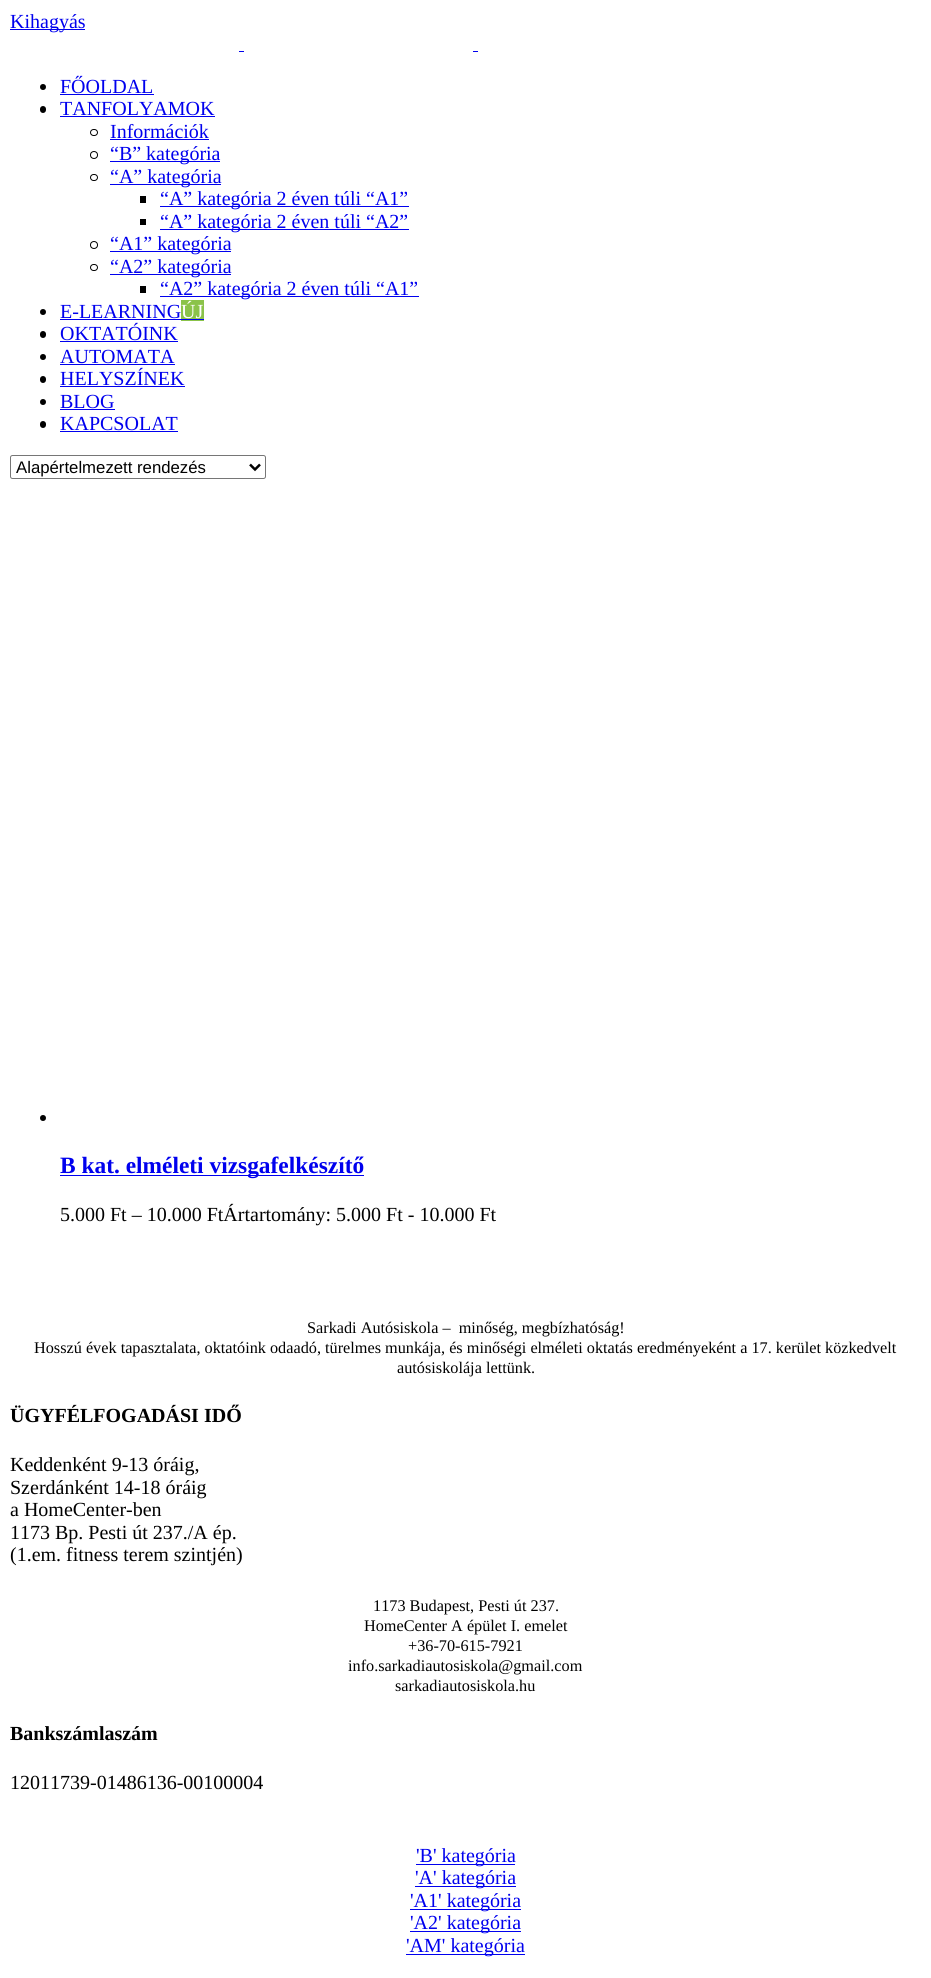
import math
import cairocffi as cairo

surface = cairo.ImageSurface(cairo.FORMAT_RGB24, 931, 1978)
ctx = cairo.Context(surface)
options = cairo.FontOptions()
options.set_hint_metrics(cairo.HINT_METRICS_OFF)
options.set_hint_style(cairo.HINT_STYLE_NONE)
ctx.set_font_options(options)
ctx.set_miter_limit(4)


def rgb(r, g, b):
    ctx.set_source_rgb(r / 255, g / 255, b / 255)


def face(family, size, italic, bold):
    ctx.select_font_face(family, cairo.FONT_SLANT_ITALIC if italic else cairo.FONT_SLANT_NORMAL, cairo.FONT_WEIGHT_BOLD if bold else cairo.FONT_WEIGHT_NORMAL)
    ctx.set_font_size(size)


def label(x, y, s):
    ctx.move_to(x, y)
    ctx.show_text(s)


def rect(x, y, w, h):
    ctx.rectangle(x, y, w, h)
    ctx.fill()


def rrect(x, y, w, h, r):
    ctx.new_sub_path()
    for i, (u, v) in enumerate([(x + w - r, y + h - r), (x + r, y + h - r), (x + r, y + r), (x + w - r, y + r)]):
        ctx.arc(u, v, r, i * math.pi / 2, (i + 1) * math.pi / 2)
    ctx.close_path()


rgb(255, 255, 255)
ctx.paint()
rgb(0, 0, 238)
rect(10, 29, 75, 1)
face('Liberation Serif', 20, 0, 0)
label(10, 28, 'Kihagyás')
rect(239, 51, 5, 1)
rect(473, 51, 5, 1)
rgb(0, 0, 0)
ctx.new_path()
ctx.arc(43, 87, 3, 0, 2 * math.pi)
ctx.fill()
rgb(0, 0, 238)
label(60, 93, 'FŐOLDAL')
rect(60, 94, 94, 1)
rgb(0, 0, 0)
rrect(40, 106, 6, 7, 3)
ctx.fill()
rgb(0, 0, 238)
label(60, 115, 'TANFOLYAMOK')
rect(60, 116, 155, 1)
rrect(90.5, 129.5, 7, 6, 3)
rgb(0, 0, 0)
ctx.set_line_width(1)
ctx.stroke()
rgb(0, 0, 238)
label(110, 138, 'Információk')
rect(110, 139, 99, 1)
ctx.new_path()
ctx.arc(94, 155, 3.5, 0, 2 * math.pi)
rgb(0, 0, 0)
ctx.stroke()
rgb(0, 0, 238)
rect(110, 161, 110, 1)
label(110, 160, '“B” kategória')
rrect(90.5, 174.5, 7, 6, 3)
rgb(0, 0, 0)
ctx.stroke()
rgb(0, 0, 238)
rect(110, 184, 111, 1)
label(110, 183, '“A” kategória')
rgb(0, 0, 0)
rect(140, 196, 6, 7)
rgb(0, 0, 238)
rect(160, 206, 249, 1)
label(160, 205, '“A” kategória 2 éven túli “A1”')
rgb(0, 0, 0)
rect(140, 219, 6, 6)
rgb(0, 0, 238)
rect(160, 229, 249, 1)
label(160, 228, '“A” kategória 2 éven túli “A2”')
ctx.new_path()
ctx.arc(94, 245, 3.5, 0, 2 * math.pi)
rgb(0, 0, 0)
ctx.stroke()
rgb(0, 0, 238)
rect(110, 251, 121, 1)
label(110, 250, '“A1” kategória')
rrect(90.5, 264.5, 7, 6, 3)
rgb(0, 0, 0)
ctx.stroke()
rgb(0, 0, 238)
rect(110, 274, 121, 1)
label(110, 273, '“A2” kategória')
rgb(0, 0, 0)
rect(140, 286, 6, 7)
rgb(0, 0, 238)
rect(160, 296, 259, 1)
label(160, 295, '“A2” kategória 2 éven túli “A1”')
rgb(0, 0, 0)
ctx.new_path()
ctx.arc(43, 312, 3, 0, 2 * math.pi)
ctx.fill()
rgb(0, 0, 238)
label(60, 318, 'E-LEARNING')
rect(60, 319, 121, 1)
rgb(139, 195, 74)
rect(181, 300, 23, 21)
rgb(0, 0, 238)
rect(181, 319, 23, 1)
rgb(255, 255, 255)
label(181, 318, 'ÚJ')
rgb(0, 0, 0)
rrect(40, 331, 6, 7, 3)
ctx.fill()
rgb(0, 0, 238)
label(60, 340, 'OKTATÓINK')
rect(60, 341, 118, 1)
rgb(0, 0, 0)
ctx.new_path()
ctx.arc(43, 357, 3, 0, 2 * math.pi)
ctx.fill()
rgb(0, 0, 238)
label(60, 363, 'AUTOMATA')
rect(60, 364, 115, 1)
rgb(0, 0, 0)
rrect(40, 376, 6, 7, 3)
ctx.fill()
rgb(0, 0, 238)
label(60, 385, 'HELYSZÍNEK')
rect(60, 386, 125, 1)
rgb(0, 0, 0)
ctx.new_path()
ctx.arc(43, 402, 3, 0, 2 * math.pi)
ctx.fill()
rgb(0, 0, 238)
label(60, 408, 'BLOG')
rect(60, 409, 55, 1)
rgb(0, 0, 0)
rrect(40, 421, 6, 7, 3)
ctx.fill()
rgb(0, 0, 238)
label(60, 430, 'KAPCSOLAT')
rect(60, 431, 118, 1)
rrect(10.5, 455.5, 255, 23, 2)
rgb(118, 118, 118)
ctx.stroke()
ctx.new_path()
ctx.move_to(250, 464.5)
ctx.line_to(255, 469.5)
ctx.line_to(260, 464.5)
rgb(0, 0, 0)
ctx.set_line_width(2.5)
ctx.stroke()
face('Liberation Sans', 16.75, 0, 0)
label(16, 473, 'Alapértelmezett rendezés')
ctx.new_path()
ctx.arc(43, 1118, 3, 0, 2 * math.pi)
ctx.fill()
rgb(0, 0, 238)
rect(60, 1175, 304, 1)
face('Liberation Serif', 23.4, 0, 1)
label(60, 1173, 'B kat. elméleti vizsgafelkészítő')
face('Liberation Serif', 20, 0, 0)
rgb(0, 0, 0)
label(60, 1221, '5.000 Ft – 10.000 FtÁrtartomány: 5.000 Ft - 10.000 Ft')
face('Liberation Serif', 16.25, 0, 0)
label(307, 1333, 'Sarkadi Autósiskola –  minőség, megbízhatóság!')
label(34, 1353, 'Hosszú évek tapasztalata, oktatóink odaadó, türelmes munkája, és minőségi elméleti oktatás eredményeként a 17. kerület közkedvelt')
label(397, 1373, 'autósiskolája lettünk.')
face('Liberation Serif', 20, 0, 1)
label(10, 1422, 'ÜGYFÉLFOGADÁSI IDŐ')
face('Liberation Serif', 20, 0, 0)
label(10, 1471, 'Keddenként 9-13 óráig,')
label(10, 1494, 'Szerdánként 14-18 óráig')
label(10, 1516, 'a HomeCenter-ben')
label(10, 1539, '1173 Bp. Pesti út 237./A ép.')
label(10, 1561, '(1.em. fitness terem szintjén)')
face('Liberation Serif', 16.25, 0, 0)
label(373, 1611, '1173 Budapest, Pesti út 237.')
label(364, 1631, 'HomeCenter A épület I. emelet')
label(408, 1651, '+36-70-615-7921')
label(348, 1671, 'info.sarkadiautosiskola@gmail.com')
label(395, 1691, 'sarkadiautosiskola.hu')
face('Liberation Serif', 20, 0, 1)
label(10, 1740, 'Bankszámlaszám')
face('Liberation Serif', 20, 0, 0)
label(10, 1789, '12011739-01486136-00100004')
rgb(0, 0, 238)
rect(416, 1864, 99, 1)
label(416, 1862, '\'B\' kategória')
rect(415, 1886, 101, 1)
label(415, 1884, '\'A\' kategória')
rect(410, 1909, 111, 1)
label(410, 1907, '\'A1\' kategória')
rect(410, 1931, 111, 1)
label(410, 1929, '\'A2\' kategória')
rect(406, 1954, 119, 1)
label(406, 1952, '\'AM\' kategória')
surface.write_to_png('render.png')
